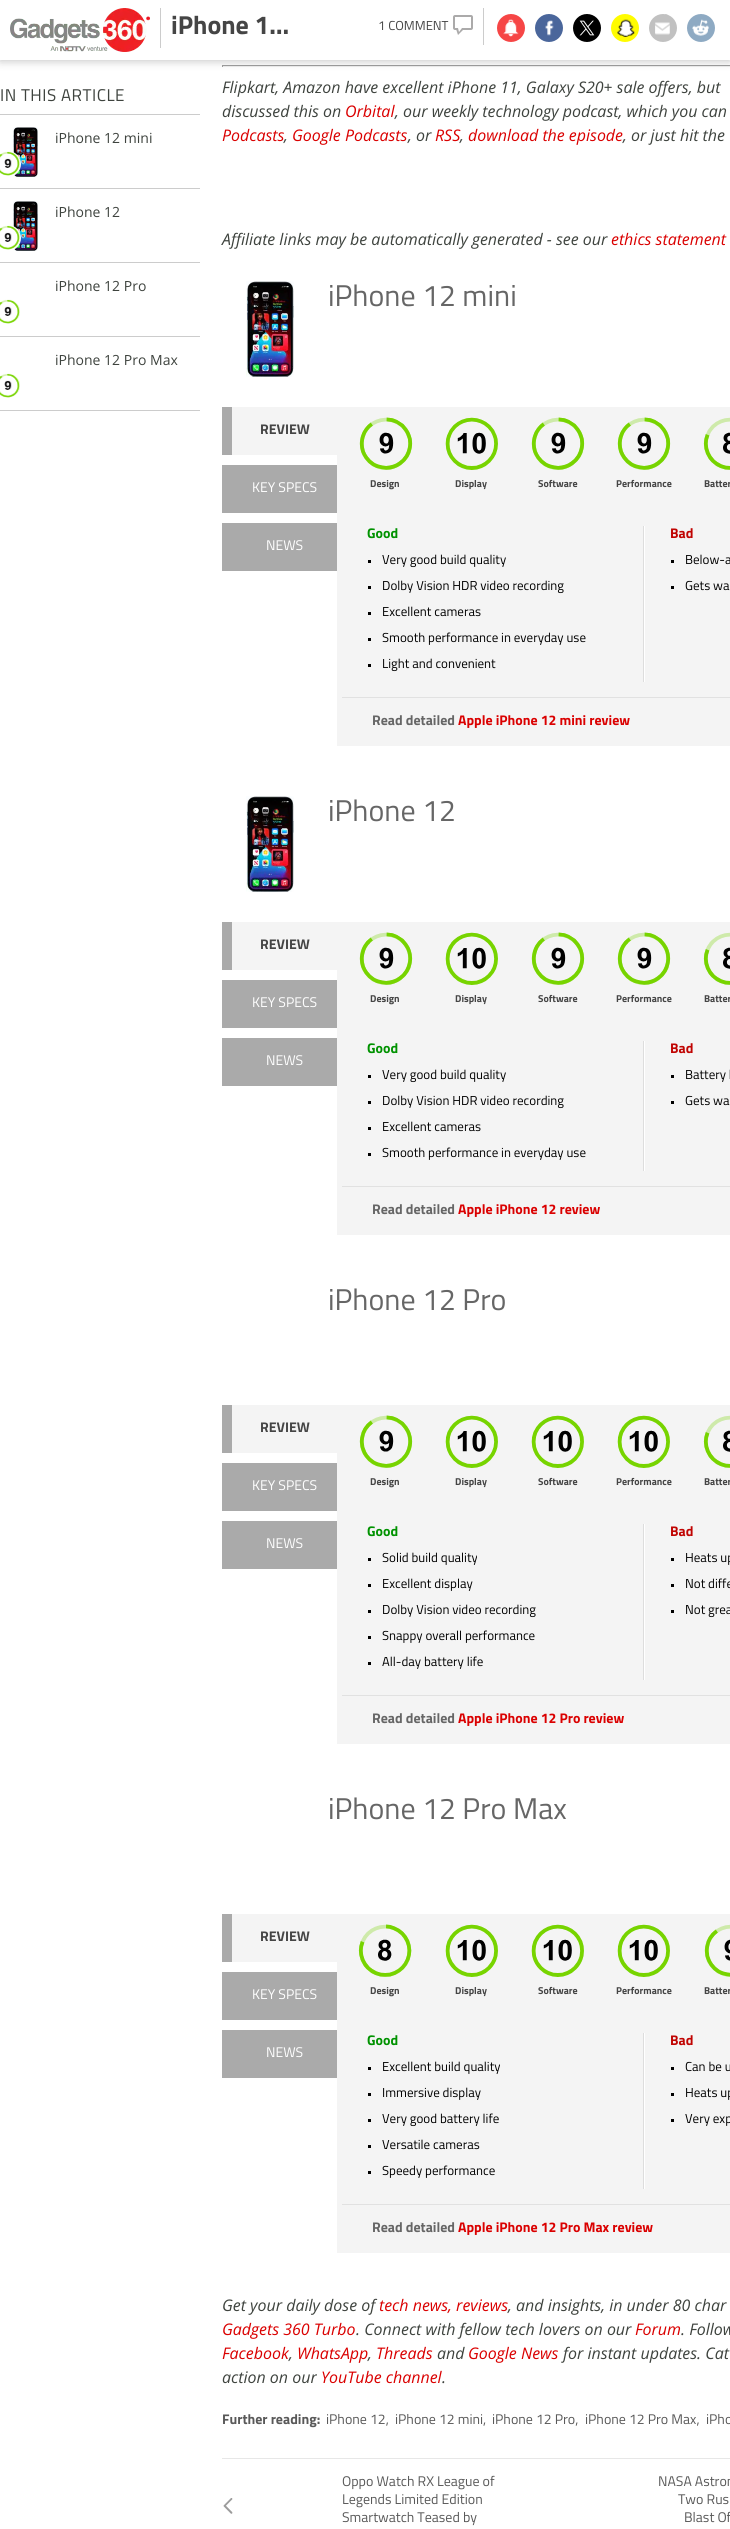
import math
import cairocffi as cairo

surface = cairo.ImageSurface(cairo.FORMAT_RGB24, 730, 2529)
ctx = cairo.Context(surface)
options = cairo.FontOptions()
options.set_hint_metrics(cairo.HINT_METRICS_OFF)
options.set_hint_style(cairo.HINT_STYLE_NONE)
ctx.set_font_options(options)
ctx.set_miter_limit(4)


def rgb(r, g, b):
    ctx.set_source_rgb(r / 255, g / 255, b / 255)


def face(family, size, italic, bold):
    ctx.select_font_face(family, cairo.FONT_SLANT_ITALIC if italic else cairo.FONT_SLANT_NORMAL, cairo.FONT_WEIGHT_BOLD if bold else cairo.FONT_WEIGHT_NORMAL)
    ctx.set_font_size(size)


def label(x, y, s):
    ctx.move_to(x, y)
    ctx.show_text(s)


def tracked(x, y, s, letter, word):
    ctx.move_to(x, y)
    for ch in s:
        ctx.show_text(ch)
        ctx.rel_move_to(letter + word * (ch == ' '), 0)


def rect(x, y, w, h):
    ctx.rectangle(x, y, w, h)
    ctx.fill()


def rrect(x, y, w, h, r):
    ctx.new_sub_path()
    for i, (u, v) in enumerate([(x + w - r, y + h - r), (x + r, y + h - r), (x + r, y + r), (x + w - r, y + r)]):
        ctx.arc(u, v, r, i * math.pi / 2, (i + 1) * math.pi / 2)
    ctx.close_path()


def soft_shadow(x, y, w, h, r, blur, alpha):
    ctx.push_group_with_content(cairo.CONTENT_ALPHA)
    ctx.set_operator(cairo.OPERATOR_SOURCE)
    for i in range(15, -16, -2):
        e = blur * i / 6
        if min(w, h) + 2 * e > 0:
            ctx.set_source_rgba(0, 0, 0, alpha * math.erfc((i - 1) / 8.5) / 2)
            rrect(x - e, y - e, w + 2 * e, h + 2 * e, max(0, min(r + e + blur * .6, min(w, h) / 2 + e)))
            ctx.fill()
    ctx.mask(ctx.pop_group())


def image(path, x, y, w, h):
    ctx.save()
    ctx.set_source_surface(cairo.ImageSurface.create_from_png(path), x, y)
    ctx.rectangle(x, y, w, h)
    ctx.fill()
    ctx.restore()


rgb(255, 255, 255)
ctx.paint()
rgb(159, 159, 159)
rect(222, 65, 508, 1)
rgb(238, 238, 238)
rect(222, 66, 508, 1)
rgb(159, 159, 159)
rect(222, 65, 1, 2)
rgb(0, 0, 0)
soft_shadow(0, 0, 730, 60, 0, 5, 0.28)
rgb(255, 255, 255)
rect(0, 0, 730, 60)
image('image0.png', 10, 8, 140, 44)
rgb(204, 204, 204)
rect(160, 8, 1, 40)
face('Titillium', 26, 0, 1)
rgb(69, 69, 69)
label(171, 34, 'iPhone 1…')
rgb(204, 204, 204)
rect(483, 8, 1, 37)
face('Titillium', 13, 0, 0)
rgb(69, 69, 69)
label(378, 30, '1 COMMENT')
rrect(454, 16, 18, 13, 1)
rgb(171, 170, 170)
ctx.stroke()
ctx.new_path()
ctx.move_to(456, 29)
ctx.line_to(464, 29)
ctx.line_to(458, 35)
ctx.close_path()
ctx.fill()
rgb(255, 255, 255)
ctx.new_path()
ctx.move_to(458, 28)
ctx.line_to(462, 28)
ctx.line_to(459, 32)
ctx.close_path()
ctx.fill()
rgb(246, 70, 70)
ctx.arc(511, 28, 14, 0, 2 * math.pi)
ctx.fill()
image('image1.png', 503, 19, 16, 18)
rgb(74, 102, 155)
ctx.arc(549, 28, 14, 0, 2 * math.pi)
ctx.fill()
image('image2.png', 545, 20, 9, 16)
rgb(0, 0, 0)
ctx.arc(587, 28, 14, 0, 2 * math.pi)
ctx.fill()
image('image3.png', 579, 20, 16, 16)
rgb(255, 252, 0)
ctx.arc(625, 28, 14, 0, 2 * math.pi)
ctx.fill()
image('image4.png', 617, 19, 18, 18)
rgb(193, 193, 193)
ctx.arc(663, 28, 14, 0, 2 * math.pi)
ctx.fill()
image('image5.png', 655, 14, 15, 21)
rgb(142, 170, 195)
ctx.arc(701, 28, 14, 0, 2 * math.pi)
ctx.fill()
image('image6.png', 692, 19, 17, 17)
rgb(204, 204, 204)
rect(0, 114, 200, 1)
face('Titillium', 17, 0, 0)
rgb(62, 67, 62)
tracked(0, 101, 'IN THIS ARTICLE', 0.5, 0)
rgb(204, 204, 204)
rect(0, 188, 200, 1)
image('image8.png', 13, 127, 25, 50)
rgb(255, 255, 255)
ctx.arc(8, 164, 13, 0, 2 * math.pi)
ctx.fill()
image('image7.png', 0, 151, 20, 25)
face('Open Sans', 14, 0, 0)
rgb(62, 67, 62)
label(55, 143, 'iPhone 12 mini')
rgb(204, 204, 204)
rect(0, 262, 200, 1)
image('image10.png', 13, 201, 25, 50)
rgb(255, 255, 255)
ctx.arc(8, 238, 13, 0, 2 * math.pi)
ctx.fill()
image('image9.png', 0, 225, 20, 25)
rgb(62, 67, 62)
label(55, 217, 'iPhone 12')
rgb(204, 204, 204)
rect(0, 336, 200, 1)
rgb(62, 67, 62)
label(55, 291, 'iPhone 12 Pro')
image('image11.png', 0, 299, 20, 25)
rgb(204, 204, 204)
rect(0, 410, 200, 1)
rgb(62, 67, 62)
label(55, 365, 'iPhone 12 Pro Max')
image('image11.png', 0, 373, 20, 25)
face('Open Sans', 16, 1, 0)
label(222, 93, 'Flipkart, Amazon have excellent iPhone 11, Galaxy S20+ sale offers, but')
label(222, 117, 'discussed this on')
rgb(218, 0, 0)
label(345, 117, 'Orbital')
rgb(62, 67, 62)
label(395, 117, ', our weekly technology podcast, which you can')
rgb(218, 0, 0)
label(222, 141, 'Podcasts')
label(292, 141, 'Google Podcasts')
rgb(62, 67, 62)
label(408, 141, ', or')
rgb(218, 0, 0)
label(435, 141, 'RSS')
label(468, 141, 'download the episode')
rgb(62, 67, 62)
label(623, 141, ', or just hit the')
label(284, 141, ',')
label(460, 141, ',')
label(222, 245, 'Affiliate links may be automatically generated - see our')
rgb(218, 0, 0)
label(611, 245, 'ethics statement')
image('image12.png', 246, 281, 48, 96)
face('Titillium', 30, 0, 0)
rgb(102, 102, 102)
label(328, 306, 'iPhone 12 mini')
rgb(170, 170, 170)
rect(222, 407, 10, 48)
rgb(244, 244, 244)
rect(232, 407, 105, 48)
face('Titillium', 14, 0, 1)
rgb(69, 69, 69)
label(260, 434, 'REVIEW')
rgb(170, 170, 170)
rect(222, 465, 115, 48)
face('Titillium', 14, 0, 0)
rgb(255, 255, 255)
label(252, 492, 'KEY SPECS')
rgb(170, 170, 170)
rect(222, 523, 115, 48)
rgb(255, 255, 255)
label(266, 550, 'NEWS')
rgb(244, 244, 244)
rect(337, 407, 393, 339)
image('image13.png', 359, 417, 54, 53)
face('Titillium', 10, 0, 1)
rgb(69, 69, 69)
label(370, 487, 'Design')
image('image14.png', 445, 417, 53, 53)
label(455, 487, 'Display')
image('image13.png', 531, 417, 54, 53)
label(538, 487, 'Software')
image('image13.png', 617, 417, 54, 53)
label(616, 487, 'Performance')
image('image15.png', 703, 417, 27, 53)
label(704, 487, 'Batter')
rgb(221, 221, 221)
rect(643, 526, 1, 156)
face('Titillium', 14, 0, 1)
rgb(0, 146, 0)
label(367, 538, 'Good')
rgb(0, 0, 0)
rect(368, 560, 3, 3)
face('Titillium', 13, 0, 0)
label(382, 564, 'Very good build quality')
rect(368, 586, 3, 3)
label(382, 590, 'Dolby Vision HDR video recording')
rect(368, 612, 3, 3)
label(382, 616, 'Excellent cameras')
rect(368, 638, 3, 3)
label(382, 642, 'Smooth performance in everyday use')
rect(368, 664, 3, 3)
label(382, 668, 'Light and convenient')
rgb(255, 255, 255)
rect(644, 526, 1, 156)
face('Titillium', 14, 0, 1)
rgb(192, 4, 2)
label(670, 538, 'Bad')
rgb(0, 0, 0)
rect(671, 560, 3, 3)
face('Titillium', 13, 0, 0)
label(685, 564, 'Below-a')
rect(671, 586, 3, 3)
label(685, 590, 'Gets wa')
rgb(225, 225, 225)
rect(342, 697, 388, 1)
face('Titillium', 14, 0, 1)
rgb(102, 102, 102)
label(372, 725, 'Read detailed')
rgb(218, 0, 0)
label(458, 725, 'Apple iPhone 12 mini review')
image('image16.png', 246, 796, 48, 96)
face('Titillium', 30, 0, 0)
rgb(102, 102, 102)
label(328, 821, 'iPhone 12')
rgb(170, 170, 170)
rect(222, 922, 10, 48)
rgb(244, 244, 244)
rect(232, 922, 105, 48)
face('Titillium', 14, 0, 1)
rgb(69, 69, 69)
label(260, 949, 'REVIEW')
rgb(170, 170, 170)
rect(222, 980, 115, 48)
face('Titillium', 14, 0, 0)
rgb(255, 255, 255)
label(252, 1007, 'KEY SPECS')
rgb(170, 170, 170)
rect(222, 1038, 115, 48)
rgb(255, 255, 255)
label(266, 1065, 'NEWS')
rgb(244, 244, 244)
rect(337, 922, 393, 313)
image('image17.png', 359, 932, 54, 53)
face('Titillium', 10, 0, 1)
rgb(69, 69, 69)
label(370, 1002, 'Design')
image('image18.png', 445, 932, 53, 53)
label(455, 1002, 'Display')
image('image17.png', 531, 932, 54, 53)
label(538, 1002, 'Software')
image('image17.png', 617, 932, 54, 53)
label(616, 1002, 'Performance')
image('image19.png', 703, 932, 27, 53)
label(704, 1002, 'Batter')
rgb(221, 221, 221)
rect(643, 1041, 1, 130)
face('Titillium', 14, 0, 1)
rgb(0, 146, 0)
label(367, 1053, 'Good')
rgb(0, 0, 0)
rect(368, 1075, 3, 3)
face('Titillium', 13, 0, 0)
label(382, 1079, 'Very good build quality')
rect(368, 1101, 3, 3)
label(382, 1105, 'Dolby Vision HDR video recording')
rect(368, 1127, 3, 3)
label(382, 1131, 'Excellent cameras')
rect(368, 1153, 3, 3)
label(382, 1157, 'Smooth performance in everyday use')
rgb(255, 255, 255)
rect(644, 1041, 1, 130)
face('Titillium', 14, 0, 1)
rgb(192, 4, 2)
label(670, 1053, 'Bad')
rgb(0, 0, 0)
rect(671, 1075, 3, 3)
face('Titillium', 13, 0, 0)
label(685, 1079, 'Battery l')
rect(671, 1101, 3, 3)
label(685, 1105, 'Gets wa')
rgb(225, 225, 225)
rect(342, 1186, 388, 1)
face('Titillium', 14, 0, 1)
rgb(102, 102, 102)
label(372, 1214, 'Read detailed')
rgb(218, 0, 0)
label(458, 1214, 'Apple iPhone 12 review')
face('Titillium', 30, 0, 0)
rgb(102, 102, 102)
label(328, 1310, 'iPhone 12 Pro')
rgb(170, 170, 170)
rect(222, 1405, 10, 48)
rgb(244, 244, 244)
rect(232, 1405, 105, 48)
face('Titillium', 14, 0, 1)
rgb(69, 69, 69)
label(260, 1432, 'REVIEW')
rgb(170, 170, 170)
rect(222, 1463, 115, 48)
face('Titillium', 14, 0, 0)
rgb(255, 255, 255)
label(252, 1490, 'KEY SPECS')
rgb(170, 170, 170)
rect(222, 1521, 115, 48)
rgb(255, 255, 255)
label(266, 1548, 'NEWS')
rgb(244, 244, 244)
rect(337, 1405, 393, 339)
image('image20.png', 359, 1415, 54, 53)
face('Titillium', 10, 0, 1)
rgb(69, 69, 69)
label(370, 1485, 'Design')
image('image21.png', 445, 1415, 53, 53)
label(455, 1485, 'Display')
image('image21.png', 531, 1415, 53, 53)
label(538, 1485, 'Software')
image('image21.png', 617, 1415, 53, 53)
label(616, 1485, 'Performance')
image('image22.png', 703, 1415, 27, 53)
label(704, 1485, 'Batter')
rgb(221, 221, 221)
rect(643, 1524, 1, 156)
face('Titillium', 14, 0, 1)
rgb(0, 146, 0)
label(367, 1536, 'Good')
rgb(0, 0, 0)
rect(368, 1558, 3, 3)
face('Titillium', 13, 0, 0)
label(382, 1562, 'Solid build quality')
rect(368, 1584, 3, 3)
label(382, 1588, 'Excellent display')
rect(368, 1610, 3, 3)
label(382, 1614, 'Dolby Vision video recording')
rect(368, 1636, 3, 3)
label(382, 1640, 'Snappy overall performance')
rect(368, 1662, 3, 3)
label(382, 1666, 'All-day battery life')
rgb(255, 255, 255)
rect(644, 1524, 1, 156)
face('Titillium', 14, 0, 1)
rgb(192, 4, 2)
label(670, 1536, 'Bad')
rgb(0, 0, 0)
rect(671, 1558, 3, 3)
face('Titillium', 13, 0, 0)
label(685, 1562, 'Heats up')
rect(671, 1584, 3, 3)
label(685, 1588, 'Not diffe')
rect(671, 1610, 3, 3)
label(685, 1614, 'Not grea')
rgb(225, 225, 225)
rect(342, 1695, 388, 1)
face('Titillium', 14, 0, 1)
rgb(102, 102, 102)
label(372, 1723, 'Read detailed')
rgb(218, 0, 0)
label(458, 1723, 'Apple iPhone 12 Pro review')
face('Titillium', 30, 0, 0)
rgb(102, 102, 102)
label(328, 1819, 'iPhone 12 Pro Max')
rgb(170, 170, 170)
rect(222, 1914, 10, 48)
rgb(244, 244, 244)
rect(232, 1914, 105, 48)
face('Titillium', 14, 0, 1)
rgb(69, 69, 69)
label(260, 1941, 'REVIEW')
rgb(170, 170, 170)
rect(222, 1972, 115, 48)
face('Titillium', 14, 0, 0)
rgb(255, 255, 255)
label(252, 1999, 'KEY SPECS')
rgb(170, 170, 170)
rect(222, 2030, 115, 48)
rgb(255, 255, 255)
label(266, 2057, 'NEWS')
rgb(244, 244, 244)
rect(337, 1914, 393, 339)
image('image23.png', 358, 1924, 54, 53)
face('Titillium', 10, 0, 1)
rgb(69, 69, 69)
label(370, 1994, 'Design')
image('image24.png', 445, 1924, 53, 53)
label(455, 1994, 'Display')
image('image24.png', 531, 1924, 53, 53)
label(538, 1994, 'Software')
image('image24.png', 617, 1924, 53, 53)
label(616, 1994, 'Performance')
image('image25.png', 704, 1924, 26, 53)
label(704, 1994, 'Batter')
rgb(221, 221, 221)
rect(643, 2033, 1, 156)
face('Titillium', 14, 0, 1)
rgb(0, 146, 0)
label(367, 2045, 'Good')
rgb(0, 0, 0)
rect(368, 2067, 3, 3)
face('Titillium', 13, 0, 0)
label(382, 2071, 'Excellent build quality')
rect(368, 2093, 3, 3)
label(382, 2097, 'Immersive display')
rect(368, 2119, 3, 3)
label(382, 2123, 'Very good battery life')
rect(368, 2145, 3, 3)
label(382, 2149, 'Versatile cameras')
rect(368, 2171, 3, 3)
label(382, 2175, 'Speedy performance')
rgb(255, 255, 255)
rect(644, 2033, 1, 156)
face('Titillium', 14, 0, 1)
rgb(192, 4, 2)
label(670, 2045, 'Bad')
rgb(0, 0, 0)
rect(671, 2067, 3, 3)
face('Titillium', 13, 0, 0)
label(685, 2071, 'Can be u')
rect(671, 2093, 3, 3)
label(685, 2097, 'Heats up')
rect(671, 2119, 3, 3)
label(685, 2123, 'Very exp')
rgb(225, 225, 225)
rect(342, 2204, 388, 1)
face('Titillium', 14, 0, 1)
rgb(102, 102, 102)
label(372, 2232, 'Read detailed')
rgb(218, 0, 0)
label(458, 2232, 'Apple iPhone 12 Pro Max review')
face('Open Sans', 16, 1, 0)
rgb(62, 67, 62)
label(222, 2311, 'Get your daily dose of')
rgb(218, 0, 0)
label(379, 2311, 'tech news, reviews')
rgb(62, 67, 62)
label(508, 2311, ', and insights, in under 80 char')
rgb(218, 0, 0)
label(222, 2335, 'Gadgets 360 Turbo')
rgb(62, 67, 62)
label(356, 2335, '. Connect with fellow tech lovers on our')
rgb(218, 0, 0)
label(635, 2335, 'Forum')
rgb(62, 67, 62)
label(681, 2335, '. Follow')
rgb(218, 0, 0)
label(222, 2359, 'Facebook')
label(297, 2359, 'WhatsApp')
label(376, 2359, 'Threads')
rgb(62, 67, 62)
label(437, 2359, 'and')
rgb(218, 0, 0)
label(468, 2359, 'Google News')
rgb(62, 67, 62)
label(563, 2359, 'for instant updates. Cat')
label(289, 2359, ',')
label(368, 2359, ',')
label(222, 2383, 'action on our')
rgb(218, 0, 0)
label(321, 2383, 'YouTube channel')
rgb(62, 67, 62)
label(442, 2383, '.')
face('Titillium', 14, 0, 1)
rgb(89, 89, 89)
label(222, 2424, 'Further reading:')
face('Titillium', 14, 0, 0)
label(326, 2424, 'iPhone 12,')
label(395, 2424, 'iPhone 12 mini,')
label(492, 2424, 'iPhone 12 Pro,')
label(585, 2424, 'iPhone 12 Pro Max,')
label(706, 2424, 'iPho')
rgb(231, 231, 231)
rect(222, 2458, 508, 1)
image('image26.png', 223, 2498, 10, 16)
rgb(89, 89, 89)
label(342, 2486, 'Oppo Watch RX League of')
label(342, 2504, 'Legends Limited Edition')
label(342, 2522, 'Smartwatch Teased by')
label(658, 2486, 'NASA Astron')
label(678, 2504, 'Two Rus')
label(684, 2522, 'Blast Of')
surface.write_to_png('render.png')
